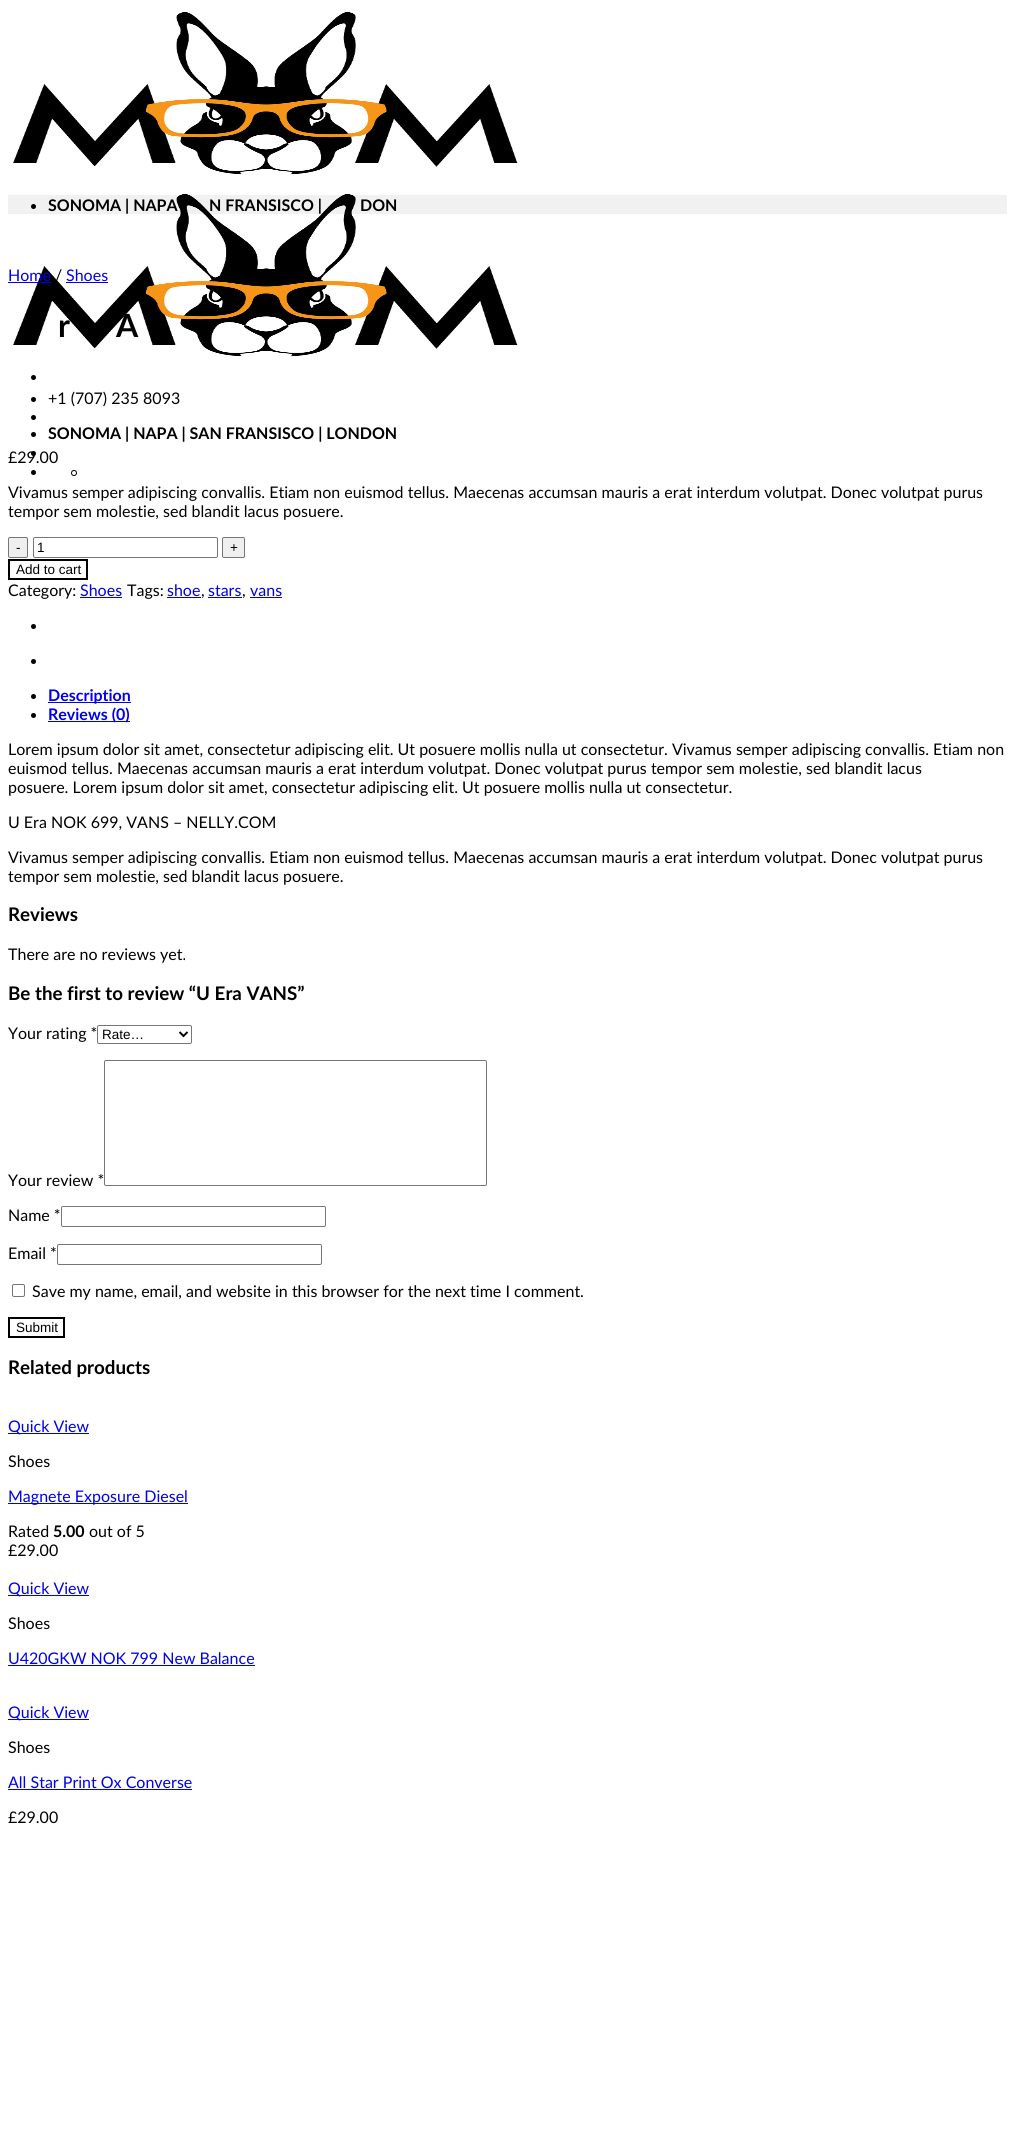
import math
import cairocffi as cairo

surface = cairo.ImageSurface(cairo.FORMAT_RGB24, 1015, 2137)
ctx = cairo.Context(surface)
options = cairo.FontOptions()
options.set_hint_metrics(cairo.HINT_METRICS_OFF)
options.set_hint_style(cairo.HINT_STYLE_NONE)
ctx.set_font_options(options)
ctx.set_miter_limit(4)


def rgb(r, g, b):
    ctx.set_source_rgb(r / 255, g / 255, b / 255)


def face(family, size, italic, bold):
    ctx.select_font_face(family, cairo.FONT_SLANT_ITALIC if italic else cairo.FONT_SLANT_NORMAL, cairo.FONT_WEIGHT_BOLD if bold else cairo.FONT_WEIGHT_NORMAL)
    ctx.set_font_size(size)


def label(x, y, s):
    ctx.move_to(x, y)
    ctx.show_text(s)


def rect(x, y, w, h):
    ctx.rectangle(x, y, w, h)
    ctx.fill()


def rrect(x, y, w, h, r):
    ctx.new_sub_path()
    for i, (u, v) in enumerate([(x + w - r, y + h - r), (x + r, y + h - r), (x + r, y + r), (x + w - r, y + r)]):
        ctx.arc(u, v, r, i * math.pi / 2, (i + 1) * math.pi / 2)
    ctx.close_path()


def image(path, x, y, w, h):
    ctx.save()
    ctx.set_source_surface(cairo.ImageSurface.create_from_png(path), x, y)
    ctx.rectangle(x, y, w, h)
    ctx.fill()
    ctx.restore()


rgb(255, 255, 255)
ctx.paint()
rgb(241, 241, 241)
rect(8, 195, 999, 19)
image('image1.png', 13, 194, 505, 163)
rgb(0, 0, 0)
ctx.arc(33.5, 206.5, 2.5, 0, 2 * math.pi)
ctx.fill()
face('Lato', 16, 0, 1)
label(48, 211, 'SONOMA | NAPA')
label(209, 211, 'N FRANSISCO |')
label(360, 211, 'DON')
image('image0.png', 13, 12, 505, 163)
ctx.arc(33.5, 399.5, 2.5, 0, 2 * math.pi)
ctx.fill()
face('Lato', 16, 0, 0)
label(48, 404, '+1 (707) 235 8093')
ctx.new_path()
ctx.arc(33.5, 434.5, 2.5, 0, 2 * math.pi)
ctx.fill()
face('Lato', 16, 0, 1)
label(48, 439, 'SONOMA | NAPA | SAN FRANSISCO | LONDON')
ctx.new_path()
ctx.arc(33.5, 453.5, 2.5, 0, 2 * math.pi)
ctx.fill()
ctx.arc(33.5, 472.5, 2.5, 0, 2 * math.pi)
ctx.fill()
ctx.arc(74, 473, 2.5, 0, 2 * math.pi)
ctx.set_line_width(1)
ctx.stroke()
face('Lato', 16, 0, 0)
rgb(0, 0, 238)
label(8, 281, 'Home')
rect(8, 282, 43, 1)
rgb(0, 0, 0)
label(55, 281, '/')
rgb(0, 0, 238)
label(66, 281, 'Shoes')
rect(66, 282, 42, 1)
face('Lato', 32, 0, 1)
rgb(0, 0, 0)
label(58, 337, 'r')
label(116, 337, 'A')
ctx.new_path()
ctx.arc(33.5, 377.5, 2.5, 0, 2 * math.pi)
ctx.fill()
ctx.arc(33.5, 417.5, 2.5, 0, 2 * math.pi)
ctx.fill()
face('Lato', 16, 0, 0)
label(8, 463, '£29.00')
label(8, 498, 'Vivamus semper adipiscing convallis. Etiam non euismod tellus. Maecenas accumsan mauris a erat interdum volutpat. Donec volutpat purus')
label(8, 517, 'tempor sem molestie, sed blandit lacus posuere.')
rgb(239, 239, 239)
rrect(8.5, 537.5, 19, 20, 1.5)
ctx.fill_preserve()
rgb(118, 118, 118)
ctx.stroke()
face('Liberation Sans', 13.5, 0, 0)
rgb(0, 0, 0)
label(16, 552, '-')
rrect(33.5, 537.5, 184, 20, 1.5)
rgb(118, 118, 118)
ctx.stroke()
rgb(0, 0, 0)
label(37, 552, '1')
rgb(239, 239, 239)
rrect(222.5, 537.5, 22, 20, 1.5)
ctx.fill_preserve()
rgb(118, 118, 118)
ctx.stroke()
rgb(0, 0, 0)
label(230, 552, '+')
ctx.rectangle(9, 560, 78, 19)
ctx.set_line_width(2)
ctx.stroke()
label(16, 574, 'Add to cart')
face('Lato', 16, 0, 0)
label(8, 596, 'Category:')
rgb(0, 0, 238)
label(80, 596, 'Shoes')
rect(80, 597, 42, 1)
rgb(0, 0, 0)
label(127, 596, 'Tags:')
rgb(0, 0, 238)
label(167, 596, 'shoe')
rgb(0, 0, 0)
label(201, 596, ',')
rgb(0, 0, 238)
rect(167, 597, 34, 1)
label(208, 596, 'stars')
rgb(0, 0, 0)
label(242, 596, ',')
rgb(0, 0, 238)
rect(208, 597, 34, 1)
rect(250, 597, 32, 1)
label(250, 596, 'vans')
rgb(0, 0, 0)
ctx.new_path()
ctx.arc(33.5, 626.5, 2.5, 0, 2 * math.pi)
ctx.fill()
ctx.arc(33.5, 661.5, 2.5, 0, 2 * math.pi)
ctx.fill()
ctx.arc(33.5, 696.5, 2.5, 0, 2 * math.pi)
ctx.fill()
rgb(0, 0, 238)
rect(48, 702, 83, 1)
face('Lato', 16, 0, 1)
label(48, 701, 'Description')
rgb(0, 0, 0)
ctx.new_path()
ctx.arc(33.5, 715.5, 2.5, 0, 2 * math.pi)
ctx.fill()
rgb(0, 0, 238)
rect(48, 721, 82, 1)
label(48, 720, 'Reviews (0)')
face('Lato', 16, 0, 0)
rgb(0, 0, 0)
label(8, 755, 'Lorem ipsum dolor sit amet, consectetur adipiscing elit. Ut posuere mollis nulla ut consectetur. Vivamus semper adipiscing convallis. Etiam non')
label(8, 774, 'euismod tellus. Maecenas accumsan mauris a erat interdum volutpat. Donec volutpat purus tempor sem molestie, sed blandit lacus')
label(8, 793, 'posuere. Lorem ipsum dolor sit amet, consectetur adipiscing elit. Ut posuere mollis nulla ut consectetur.')
label(8, 828, 'U Era NOK 699, VANS – NELLY.COM')
label(8, 863, 'Vivamus semper adipiscing convallis. Etiam non euismod tellus. Maecenas accumsan mauris a erat interdum volutpat. Donec volutpat purus')
label(8, 882, 'tempor sem molestie, sed blandit lacus posuere.')
face('Lato', 18.75, 0, 1)
label(8, 921, 'Reviews')
face('Lato', 16, 0, 0)
label(8, 960, 'There are no reviews yet.')
face('Lato', 18.75, 0, 1)
label(8, 1000, 'Be the first to review “U Era VANS”')
face('Lato', 16, 0, 0)
label(8, 1039, 'Your rating *')
rrect(97.5, 1025.5, 94, 18, 1.5)
rgb(118, 118, 118)
ctx.set_line_width(1)
ctx.stroke()
ctx.new_path()
ctx.move_to(179.5, 1032)
ctx.line_to(183.5, 1036)
ctx.line_to(187.5, 1032)
rgb(0, 0, 0)
ctx.set_line_width(2)
ctx.stroke()
face('Liberation Sans', 13.5, 0, 0)
label(102, 1039, 'Rate…')
face('Lato', 16, 0, 0)
label(8, 1186, 'Your review *')
rrect(104.5, 1060.5, 382, 125, 1.5)
rgb(118, 118, 118)
ctx.set_line_width(1)
ctx.stroke()
rgb(0, 0, 0)
label(8, 1221, 'Name *')
rrect(61.5, 1206.5, 264, 20, 1.5)
rgb(118, 118, 118)
ctx.stroke()
rgb(0, 0, 0)
label(8, 1259, 'Email *')
rrect(57.5, 1244.5, 264, 20, 1.5)
rgb(118, 118, 118)
ctx.stroke()
rrect(12.5, 1284.5, 12, 12, 1.5)
ctx.stroke()
rgb(0, 0, 0)
label(32, 1297, 'Save my name, email, and website in this browser for the next time I comment.')
ctx.rectangle(9, 1318, 55, 19)
ctx.set_line_width(2)
ctx.stroke()
face('Liberation Sans', 13.5, 0, 0)
label(16, 1332, 'Submit')
face('Lato', 18.75, 0, 1)
label(8, 1374, 'Related products')
rgb(0, 0, 238)
rect(8, 1433, 81, 1)
face('Lato', 16, 0, 0)
label(8, 1432, 'Quick View')
rgb(0, 0, 0)
label(8, 1467, 'Shoes')
rgb(0, 0, 238)
rect(8, 1503, 180, 1)
label(8, 1502, 'Magnete Exposure Diesel')
rgb(0, 0, 0)
label(8, 1537, 'Rated')
face('Lato', 16, 0, 1)
label(53, 1537, '5.00')
face('Lato', 16, 0, 0)
label(89, 1537, 'out of 5')
label(8, 1556, '£29.00')
rgb(0, 0, 238)
rect(8, 1595, 81, 1)
label(8, 1594, 'Quick View')
rgb(0, 0, 0)
label(8, 1629, 'Shoes')
rgb(0, 0, 238)
label(8, 1664, 'U420GKW NOK 799 New Balance')
rect(8, 1665, 247, 1)
rect(8, 1719, 81, 1)
label(8, 1718, 'Quick View')
rgb(0, 0, 0)
label(8, 1753, 'Shoes')
rgb(0, 0, 238)
label(8, 1788, 'All Star Print Ox Converse')
rect(8, 1789, 184, 1)
rgb(0, 0, 0)
label(8, 1823, '£29.00')
surface.write_to_png('render.png')
